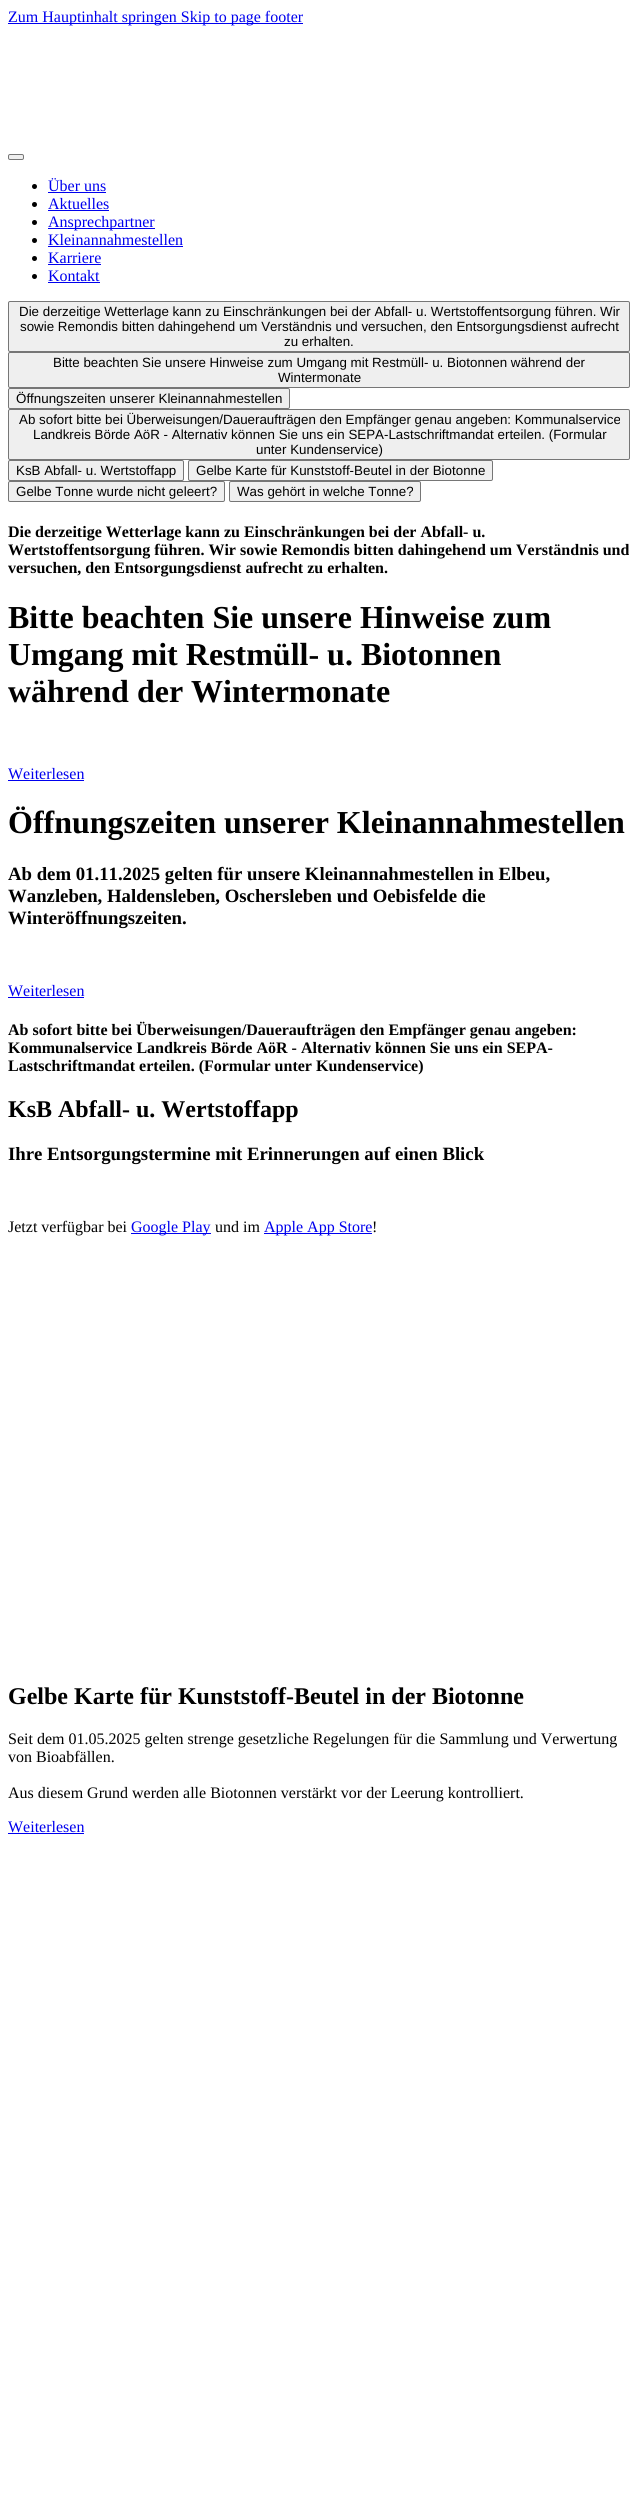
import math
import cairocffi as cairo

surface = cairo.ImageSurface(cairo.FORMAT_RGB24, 638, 2513)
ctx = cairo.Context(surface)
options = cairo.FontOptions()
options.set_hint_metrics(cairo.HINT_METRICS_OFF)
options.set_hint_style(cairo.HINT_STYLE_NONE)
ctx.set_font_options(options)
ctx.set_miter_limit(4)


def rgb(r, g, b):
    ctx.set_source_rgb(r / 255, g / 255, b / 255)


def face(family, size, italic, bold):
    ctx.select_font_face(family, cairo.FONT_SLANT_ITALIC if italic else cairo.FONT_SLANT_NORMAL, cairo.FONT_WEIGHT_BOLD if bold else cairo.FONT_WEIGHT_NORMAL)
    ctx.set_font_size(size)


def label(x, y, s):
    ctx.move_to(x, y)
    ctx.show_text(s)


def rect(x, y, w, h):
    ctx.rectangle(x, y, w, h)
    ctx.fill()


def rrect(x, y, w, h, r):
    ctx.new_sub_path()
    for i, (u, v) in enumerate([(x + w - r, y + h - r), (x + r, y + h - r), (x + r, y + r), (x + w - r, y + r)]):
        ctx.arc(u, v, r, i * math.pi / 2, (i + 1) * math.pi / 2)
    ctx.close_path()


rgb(255, 255, 255)
ctx.paint()
rgb(0, 0, 238)
rect(8, 23, 295, 1)
face('Liberation Serif', 16, 0, 0)
label(8, 22, 'Zum Hauptinhalt springen Skip to page footer')
rgb(239, 239, 239)
rrect(8.5, 154.5, 15, 5, 1.5)
ctx.fill_preserve()
rgb(118, 118, 118)
ctx.set_line_width(1)
ctx.stroke()
rgb(0, 0, 0)
ctx.arc(34.5, 186.5, 2.5, 0, 2 * math.pi)
ctx.fill()
rgb(0, 0, 238)
label(48, 191, 'Über uns')
rect(48, 192, 58, 1)
rgb(0, 0, 0)
ctx.new_path()
ctx.arc(34.5, 204.5, 2.5, 0, 2 * math.pi)
ctx.fill()
rgb(0, 0, 238)
label(48, 209, 'Aktuelles')
rect(48, 210, 61, 1)
rgb(0, 0, 0)
ctx.new_path()
ctx.arc(34.5, 222.5, 2.5, 0, 2 * math.pi)
ctx.fill()
rgb(0, 0, 238)
rect(48, 228, 107, 1)
label(48, 227, 'Ansprechpartner')
rgb(0, 0, 0)
ctx.new_path()
ctx.arc(34.5, 240.5, 2.5, 0, 2 * math.pi)
ctx.fill()
rgb(0, 0, 238)
label(48, 245, 'Kleinannahmestellen')
rect(48, 246, 135, 1)
rgb(0, 0, 0)
ctx.new_path()
ctx.arc(34.5, 258.5, 2.5, 0, 2 * math.pi)
ctx.fill()
rgb(0, 0, 238)
label(48, 263, 'Karriere')
rect(48, 264, 53, 1)
rgb(0, 0, 0)
ctx.new_path()
ctx.arc(34.5, 276.5, 2.5, 0, 2 * math.pi)
ctx.fill()
rgb(0, 0, 238)
label(48, 281, 'Kontakt')
rect(48, 282, 52, 1)
rgb(239, 239, 239)
rrect(8.5, 301.5, 621, 50, 1.5)
ctx.fill_preserve()
rgb(118, 118, 118)
ctx.stroke()
face('Liberation Sans', 13.35, 0, 0)
rgb(0, 0, 0)
label(19, 316, 'Die derzeitige Wetterlage kann zu Einschränkungen bei der Abfall- u. Wertstoffentsorgung führen. Wir')
label(20, 331, 'sowie Remondis bitten dahingehend um Verständnis und versuchen, den Entsorgungsdienst aufrecht')
label(284, 346, 'zu erhalten.')
rgb(239, 239, 239)
rrect(8.5, 352.5, 621, 35, 1.5)
ctx.fill_preserve()
rgb(118, 118, 118)
ctx.stroke()
rgb(0, 0, 0)
label(53, 367, 'Bitte beachten Sie unsere Hinweise zum Umgang mit Restmüll- u. Biotonnen während der')
label(278, 382, 'Wintermonate')
rgb(239, 239, 239)
rrect(8.5, 388.5, 281, 20, 1.5)
ctx.fill_preserve()
rgb(118, 118, 118)
ctx.stroke()
rgb(0, 0, 0)
label(16, 403, 'Öffnungszeiten unserer Kleinannahmestellen')
rgb(239, 239, 239)
rrect(8.5, 409.5, 621, 50, 1.5)
ctx.fill_preserve()
rgb(118, 118, 118)
ctx.stroke()
rgb(0, 0, 0)
label(19, 424, 'Ab sofort bitte bei Überweisungen/Daueraufträgen den Empfänger genau angeben: Kommunalservice')
label(33, 439, 'Landkreis Börde AöR - Alternativ können Sie uns ein SEPA-Lastschriftmandat erteilen. (Formular')
label(256, 454, 'unter Kundenservice)')
rgb(239, 239, 239)
rrect(8.5, 460.5, 175, 20, 1.5)
ctx.fill_preserve()
rgb(118, 118, 118)
ctx.stroke()
rgb(0, 0, 0)
label(16, 475, 'KsB Abfall- u. Wertstoffapp')
rgb(239, 239, 239)
rrect(188.5, 460.5, 304, 20, 1.5)
ctx.fill_preserve()
rgb(118, 118, 118)
ctx.stroke()
rgb(0, 0, 0)
label(196, 475, 'Gelbe Karte für Kunststoff-Beutel in der Biotonne')
rgb(239, 239, 239)
rrect(8.5, 481.5, 216, 20, 1.5)
ctx.fill_preserve()
rgb(118, 118, 118)
ctx.stroke()
rgb(0, 0, 0)
label(16, 496, 'Gelbe Tonne wurde nicht geleert?')
rgb(239, 239, 239)
rrect(229.5, 481.5, 191, 20, 1.5)
ctx.fill_preserve()
rgb(118, 118, 118)
ctx.stroke()
rgb(0, 0, 0)
label(237, 496, 'Was gehört in welche Tonne?')
face('Liberation Serif', 16, 0, 1)
label(8, 537, 'Die derzeitige Wetterlage kann zu Einschränkungen bei der Abfall- u.')
label(8, 555, 'Wertstoffentsorgung führen. Wir sowie Remondis bitten dahingehend um Verständnis und')
label(8, 573, 'versuchen, den Entsorgungsdienst aufrecht zu erhalten.')
face('Liberation Serif', 32, 0, 1)
label(8, 628, 'Bitte beachten Sie unsere Hinweise zum')
label(8, 665, 'Umgang mit Restmüll- u. Biotonnen')
label(8, 702, 'während der Wintermonate')
face('Liberation Serif', 16, 0, 0)
rgb(0, 0, 238)
label(8, 779, 'Weiterlesen')
rect(8, 780, 76, 1)
face('Liberation Serif', 32, 0, 1)
rgb(0, 0, 0)
label(8, 833, 'Öffnungszeiten unserer Kleinannahmestellen')
face('Liberation Serif', 18.75, 0, 1)
label(8, 880, 'Ab dem 01.11.2025 gelten für unsere Kleinannahmestellen in Elbeu,')
label(8, 902, 'Wanzleben, Haldensleben, Oschersleben und Oebisfelde die')
label(8, 924, 'Winteröffnungszeiten.')
face('Liberation Serif', 16, 0, 0)
rgb(0, 0, 238)
label(8, 996, 'Weiterlesen')
rect(8, 997, 76, 1)
face('Liberation Serif', 16, 0, 1)
rgb(0, 0, 0)
label(8, 1035, 'Ab sofort bitte bei Überweisungen/Daueraufträgen den Empfänger genau angeben:')
label(8, 1053, 'Kommunalservice Landkreis Börde AöR - Alternativ können Sie uns ein SEPA-')
label(8, 1071, 'Lastschriftmandat erteilen. (Formular unter Kundenservice)')
face('Liberation Serif', 24, 0, 1)
label(8, 1117, 'KsB Abfall- u. Wertstoffapp')
face('Liberation Serif', 18.75, 0, 1)
label(8, 1160, 'Ihre Entsorgungstermine mit Erinnerungen auf einen Blick')
face('Liberation Serif', 16, 0, 0)
label(8, 1232, 'Jetzt verfügbar bei')
rgb(0, 0, 238)
rect(131, 1233, 80, 1)
label(131, 1232, 'Google Play')
rgb(0, 0, 0)
label(215, 1232, 'und im')
rgb(0, 0, 238)
rect(264, 1233, 108, 1)
label(264, 1232, 'Apple App Store')
rgb(0, 0, 0)
label(372, 1232, '!')
face('Liberation Serif', 24, 0, 1)
label(8, 1704, 'Gelbe Karte für Kunststoff-Beutel in der Biotonne')
face('Liberation Serif', 16, 0, 0)
label(8, 1744, 'Seit dem 01.05.2025 gelten strenge gesetzliche Regelungen für die Sammlung und Verwertung')
label(8, 1762, 'von Bioabfällen.')
label(8, 1798, 'Aus diesem Grund werden alle Biotonnen verstärkt vor der Leerung kontrolliert.')
rgb(0, 0, 238)
label(8, 1832, 'Weiterlesen')
rect(8, 1833, 76, 1)
surface.write_to_png('render.png')
